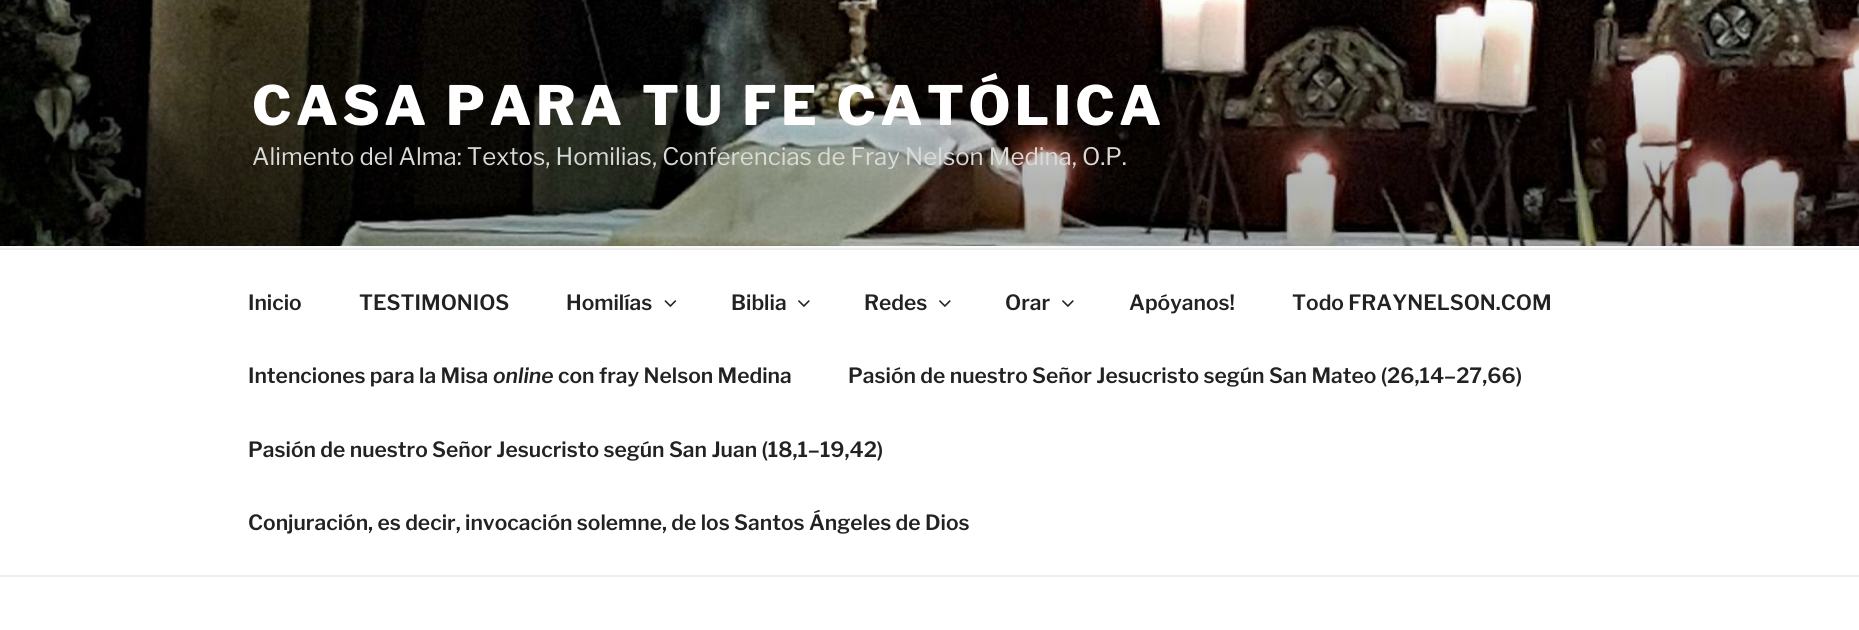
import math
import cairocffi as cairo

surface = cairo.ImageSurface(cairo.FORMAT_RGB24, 1859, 630)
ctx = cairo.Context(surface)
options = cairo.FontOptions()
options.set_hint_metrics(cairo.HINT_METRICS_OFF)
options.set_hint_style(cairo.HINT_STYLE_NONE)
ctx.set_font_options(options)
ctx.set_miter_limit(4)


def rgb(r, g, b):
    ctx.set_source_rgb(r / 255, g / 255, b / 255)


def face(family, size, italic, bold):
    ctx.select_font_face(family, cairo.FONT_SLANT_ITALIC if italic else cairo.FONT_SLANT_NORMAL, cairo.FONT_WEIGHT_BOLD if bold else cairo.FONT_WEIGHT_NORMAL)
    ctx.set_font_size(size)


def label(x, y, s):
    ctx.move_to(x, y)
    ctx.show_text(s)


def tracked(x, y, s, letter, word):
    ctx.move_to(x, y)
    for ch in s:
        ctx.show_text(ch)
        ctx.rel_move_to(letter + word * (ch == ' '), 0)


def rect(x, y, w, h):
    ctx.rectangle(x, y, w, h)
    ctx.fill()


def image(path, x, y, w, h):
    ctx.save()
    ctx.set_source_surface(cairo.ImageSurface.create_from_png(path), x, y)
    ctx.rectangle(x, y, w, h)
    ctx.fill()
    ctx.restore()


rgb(255, 255, 255)
ctx.paint()
rgb(250, 250, 250)
rect(0, 246, 1859, 2)
image('image0.png', 0, 0, 1859, 246)
face('Libre Franklin Thin', 54, 0, 0)
rgb(255, 255, 255)
tracked(252, 125, 'CASA PARA TU FE CATÓLICA', 4.3, 0)
face('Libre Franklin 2 Thin', 24, 0, 0)
rgb(218, 218, 216)
label(252, 165, 'Alimento del Alma: Textos, Homilias, Conferencias de Fray Nelson Medina, O.P.')
rgb(238, 238, 238)
rect(0, 248, 1859, 2)
rect(0, 575, 1859, 2)
face('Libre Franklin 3 Thin', 21, 0, 0)
rgb(34, 34, 34)
label(248, 310, 'Inicio')
label(359, 310, 'TESTIMONIOS')
label(566, 310, 'Homilías')
image('image1.png', 664, 300, 13, 7)
label(731, 310, 'Biblia')
image('image2.png', 798, 300, 12, 7)
label(864, 310, 'Redes')
image('image2.png', 939, 300, 12, 7)
label(1005, 310, 'Orar')
image('image2.png', 1062, 300, 12, 7)
label(1129, 310, 'Apóyanos!')
label(1292, 310, 'Todo FRAYNELSON.COM')
label(248, 383, 'Intenciones para la Misa')
face('Libre Franklin Thin', 21, 1, 0)
label(493, 383, 'online')
face('Libre Franklin 3 Thin', 21, 0, 0)
label(558, 383, 'con fray Nelson Medina')
label(848, 383, 'Pasión de nuestro Señor Jesucristo según San Mateo (26,14–27,66)')
label(248, 457, 'Pasión de nuestro Señor Jesucristo según San Juan (18,1–19,42)')
label(248, 530, 'Conjuración, es decir, invocación solemne, de los Santos Ángeles de Dios')
surface.write_to_png('render.png')
